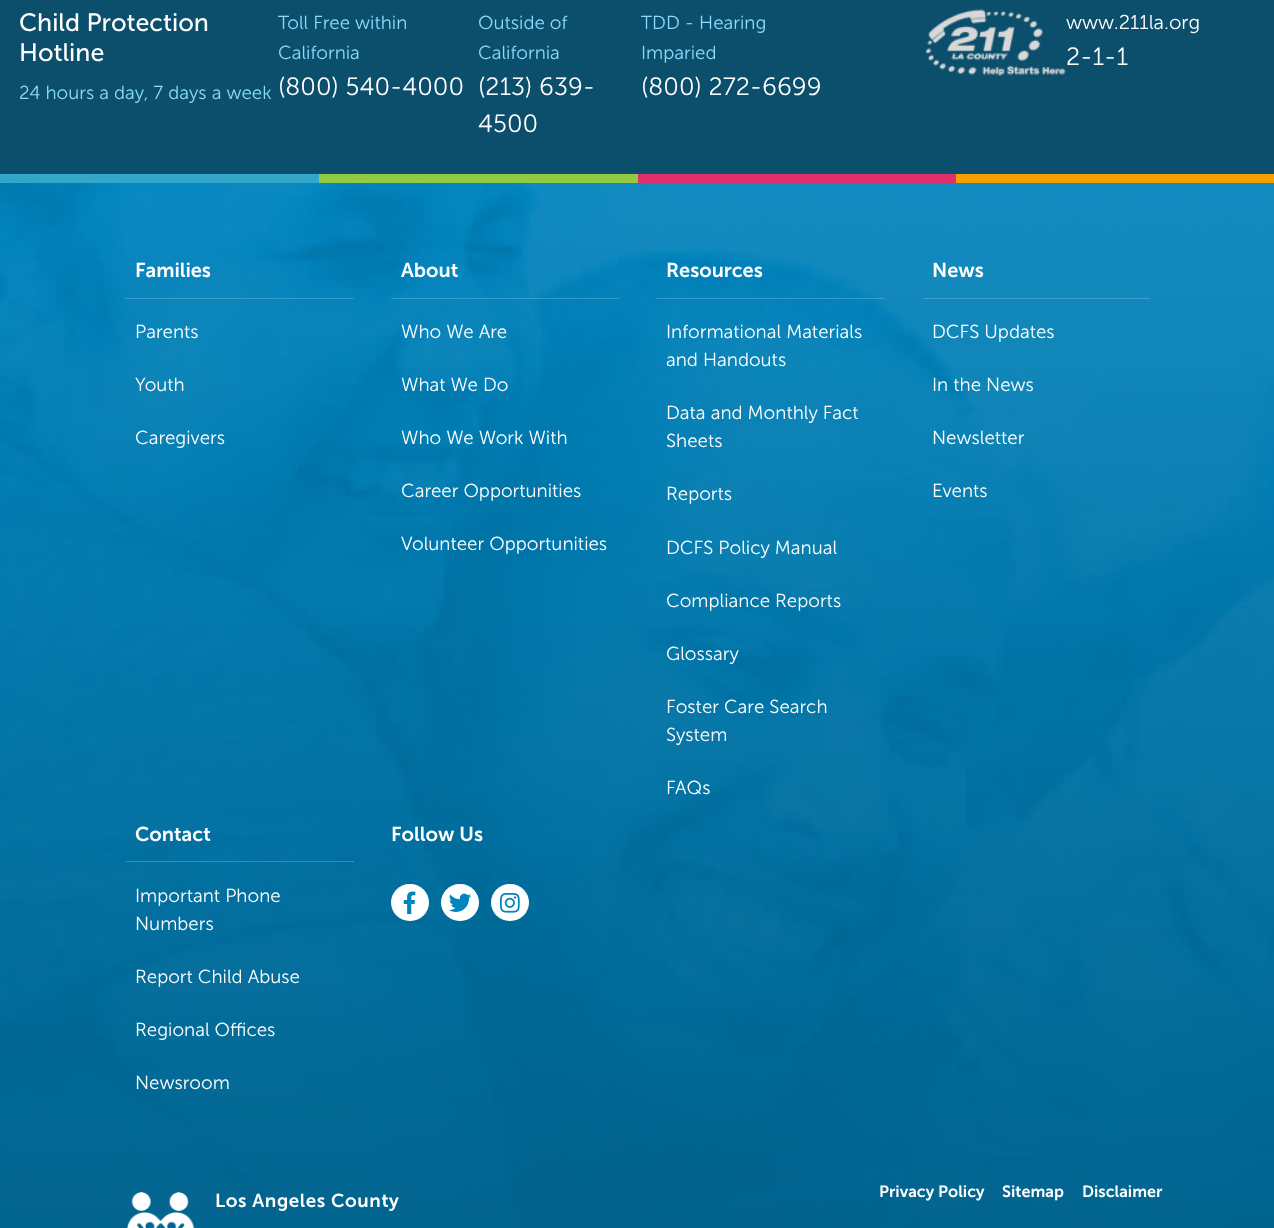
<?xml version="1.0" encoding="UTF-8"?>
<svg xmlns="http://www.w3.org/2000/svg" xmlns:xlink="http://www.w3.org/1999/xlink" width="1274" height="1228">
  <rect width="100%" height="100%" fill="#0b4f6c" />
  <image x="925" y="7" width="141" height="69" xlink:href="image1.png" />
  <image x="0" y="183" width="1274" height="1045" xlink:href="image2.png" />
  <rect y="174" width="319" height="9" fill="#32a7c7" />
  <rect x="319" y="174" width="319" height="9" fill="#93ca44" />
  <rect x="638" y="174" width="318" height="9" fill="#e12f6b" />
  <rect x="956" y="174" width="318" height="9" fill="#f89d02" />
  <rect x="125" y="298" width="229" height="1" fill="#ffffff" fill-opacity="0.2" />
  <rect x="391" y="298" width="228" height="1" fill="#ffffff" fill-opacity="0.2" />
  <rect x="656" y="298" width="229" height="1" fill="#ffffff" fill-opacity="0.2" />
  <rect x="923" y="298" width="227" height="1" fill="#419fc9" />
  <rect x="125" y="861" width="229" height="1" fill="#ffffff" fill-opacity="0.2" />
  <rect x="391" y="884" width="38" height="37" rx="18.5" fill="#ffffff" />
  <image x="403" y="891" width="13" height="24" xlink:href="image3.png" />
  <rect x="441" y="884" width="38" height="37" rx="18.5" fill="#ffffff" />
  <image x="448" y="893" width="23" height="19" xlink:href="image4.png" />
  <rect x="491" y="884" width="38" height="37" rx="18.5" fill="#ffffff" />
  <image x="500" y="893" width="20" height="20" xlink:href="image5.png" />
  <image x="126" y="1192" width="69" height="36" xlink:href="image6.png" />
  <text x="19" y="31" style="font-family: 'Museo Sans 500'; font-size: 25px; fill: #ffffff">Child Protection</text>
  <text x="19" y="61" style="font-family: 'Museo Sans 500'; font-size: 25px; fill: #ffffff">Hotline</text>
  <text x="19" y="99" style="font-family: 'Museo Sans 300'; font-size: 18.75px; font-weight: 300; fill: #8adafc">24 hours a day, 7 days a week</text>
  <text x="278" y="29" style="font-family: 'Museo Sans 300'; font-size: 18.75px; font-weight: 300; fill: #8adafc">Toll Free within</text>
  <text x="278" y="59" style="font-family: 'Museo Sans 300'; font-size: 18.75px; font-weight: 300; fill: #8adafc">California</text>
  <text x="278" y="95" style="font-family: 'Museo Sans 300'; font-size: 25px; font-weight: 300; fill: #ffffff">(800) 540-4000</text>
  <text x="478" y="29" style="font-family: 'Museo Sans 300'; font-size: 18.75px; font-weight: 300; fill: #8adafc">Outside of</text>
  <text x="478" y="59" style="font-family: 'Museo Sans 300'; font-size: 18.75px; font-weight: 300; fill: #8adafc">California</text>
  <text x="478" y="95" style="font-family: 'Museo Sans 300'; font-size: 25px; font-weight: 300; fill: #ffffff">(213) 639-</text>
  <text x="478" y="132" style="font-family: 'Museo Sans 300'; font-size: 25px; font-weight: 300; fill: #ffffff">4500</text>
  <text x="641" y="29" style="font-family: 'Museo Sans 300'; font-size: 18.75px; font-weight: 300; fill: #8adafc">TDD - Hearing</text>
  <text x="641" y="59" style="font-family: 'Museo Sans 300'; font-size: 18.75px; font-weight: 300; fill: #8adafc">Imparied</text>
  <text x="641" y="95" style="font-family: 'Museo Sans 300'; font-size: 25px; font-weight: 300; fill: #ffffff">(800) 272-6699</text>
  <text x="1066" y="29" style="font-family: 'Museo Sans 300'; font-size: 20px; font-weight: 300; fill: #ffffff">www.211la.org</text>
  <text x="1066" y="65" style="font-family: 'Museo Sans 300'; font-size: 25px; font-weight: 300; fill: #ffffff">2-1-1</text>
  <text x="135" y="277" style="font-family: 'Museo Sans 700'; font-size: 20px; font-weight: 600; fill: #ffffff">Families</text>
  <text x="135" y="338" style="font-family: 'Museo Sans 300'; font-size: 18.75px; font-weight: 300; fill: #ffffff">Parents</text>
  <text x="135" y="391" style="font-family: 'Museo Sans 300'; font-size: 18.75px; font-weight: 300; fill: #ffffff">Youth</text>
  <text x="135" y="444" style="font-family: 'Museo Sans 300'; font-size: 18.75px; font-weight: 300; fill: #ffffff">Caregivers</text>
  <text x="401" y="277" style="font-family: 'Museo Sans 700'; font-size: 20px; font-weight: 600; fill: #ffffff">About</text>
  <text x="401" y="338" style="font-family: 'Museo Sans 300'; font-size: 18.75px; font-weight: 300; fill: #ffffff">Who We Are</text>
  <text x="401" y="391" style="font-family: 'Museo Sans 300'; font-size: 18.75px; font-weight: 300; fill: #ffffff">What We Do</text>
  <text x="401" y="444" style="font-family: 'Museo Sans 300'; font-size: 18.75px; font-weight: 300; fill: #ffffff">Who We Work With</text>
  <text x="401" y="497" style="font-family: 'Museo Sans 300'; font-size: 18.75px; font-weight: 300; fill: #ffffff">Career Opportunities</text>
  <text x="401" y="550" style="font-family: 'Museo Sans 300'; font-size: 18.75px; font-weight: 300; fill: #ffffff">Volunteer Opportunities</text>
  <text x="666" y="277" style="font-family: 'Museo Sans 700'; font-size: 20px; font-weight: 600; fill: #ffffff">Resources</text>
  <text x="666" y="338" style="font-family: 'Museo Sans 300'; font-size: 18.75px; font-weight: 300; fill: #ffffff">Informational Materials</text>
  <text x="666" y="366" style="font-family: 'Museo Sans 300'; font-size: 18.75px; font-weight: 300; fill: #ffffff">and Handouts</text>
  <text x="666" y="419" style="font-family: 'Museo Sans 300'; font-size: 18.75px; font-weight: 300; fill: #ffffff">Data and Monthly Fact</text>
  <text x="666" y="447" style="font-family: 'Museo Sans 300'; font-size: 18.75px; font-weight: 300; fill: #ffffff">Sheets</text>
  <text x="666" y="500" style="font-family: 'Museo Sans 300'; font-size: 18.75px; font-weight: 300; fill: #ffffff">Reports</text>
  <text x="666" y="554" style="font-family: 'Museo Sans 300'; font-size: 18.75px; font-weight: 300; fill: #ffffff">DCFS Policy Manual</text>
  <text x="666" y="607" style="font-family: 'Museo Sans 300'; font-size: 18.75px; font-weight: 300; fill: #ffffff">Compliance Reports</text>
  <text x="666" y="660" style="font-family: 'Museo Sans 300'; font-size: 18.75px; font-weight: 300; fill: #ffffff">Glossary</text>
  <text x="666" y="713" style="font-family: 'Museo Sans 300'; font-size: 18.75px; font-weight: 300; fill: #ffffff">Foster Care Search</text>
  <text x="666" y="741" style="font-family: 'Museo Sans 300'; font-size: 18.75px; font-weight: 300; fill: #ffffff">System</text>
  <text x="666" y="794" style="font-family: 'Museo Sans 300'; font-size: 18.75px; font-weight: 300; fill: #ffffff">FAQs</text>
  <text x="932" y="277" style="font-family: 'Museo Sans 700'; font-size: 20px; font-weight: 600; fill: #ffffff">News</text>
  <text x="932" y="338" style="font-family: 'Museo Sans 300'; font-size: 18.75px; font-weight: 300; fill: #ffffff">DCFS Updates</text>
  <text x="932" y="391" style="font-family: 'Museo Sans 300'; font-size: 18.75px; font-weight: 300; fill: #ffffff">In the News</text>
  <text x="932" y="444" style="font-family: 'Museo Sans 300'; font-size: 18.75px; font-weight: 300; fill: #ffffff">Newsletter</text>
  <text x="932" y="497" style="font-family: 'Museo Sans 300'; font-size: 18.75px; font-weight: 300; fill: #ffffff">Events</text>
  <text x="135" y="841" style="font-family: 'Museo Sans 700'; font-size: 20px; font-weight: 600; fill: #ffffff">Contact</text>
  <text x="135" y="902" style="font-family: 'Museo Sans 300'; font-size: 18.75px; font-weight: 300; fill: #ffffff">Important Phone</text>
  <text x="135" y="930" style="font-family: 'Museo Sans 300'; font-size: 18.75px; font-weight: 300; fill: #ffffff">Numbers</text>
  <text x="135" y="983" style="font-family: 'Museo Sans 300'; font-size: 18.75px; font-weight: 300; fill: #ffffff">Report Child Abuse</text>
  <text x="135" y="1036" style="font-family: 'Museo Sans 300'; font-size: 18.75px; font-weight: 300; fill: #ffffff">Regional Offices</text>
  <text x="135" y="1089" style="font-family: 'Museo Sans 300'; font-size: 18.75px; font-weight: 300; fill: #ffffff">Newsroom</text>
  <text x="391" y="841" style="font-family: 'Museo Sans 700'; font-size: 20px; font-weight: 600; fill: #ffffff">Follow Us</text>
  <text x="215" y="1207" style="font-family: 'Museo Sans 700'; font-size: 18.75px; font-weight: 600; letter-spacing: 0.6px; fill: #ffffff">Los Angeles County</text>
  <text x="879" y="1197" style="font-family: 'Museo Sans 700'; font-size: 16.25px; font-weight: 600; fill: #ffffff">Privacy Policy</text>
  <text x="1002" y="1197" style="font-family: 'Museo Sans 700'; font-size: 16.25px; font-weight: 600; fill: #ffffff">Sitemap</text>
  <text x="1082" y="1197" style="font-family: 'Museo Sans 700'; font-size: 16.25px; font-weight: 600; fill: #ffffff">Disclaimer</text>
</svg>
